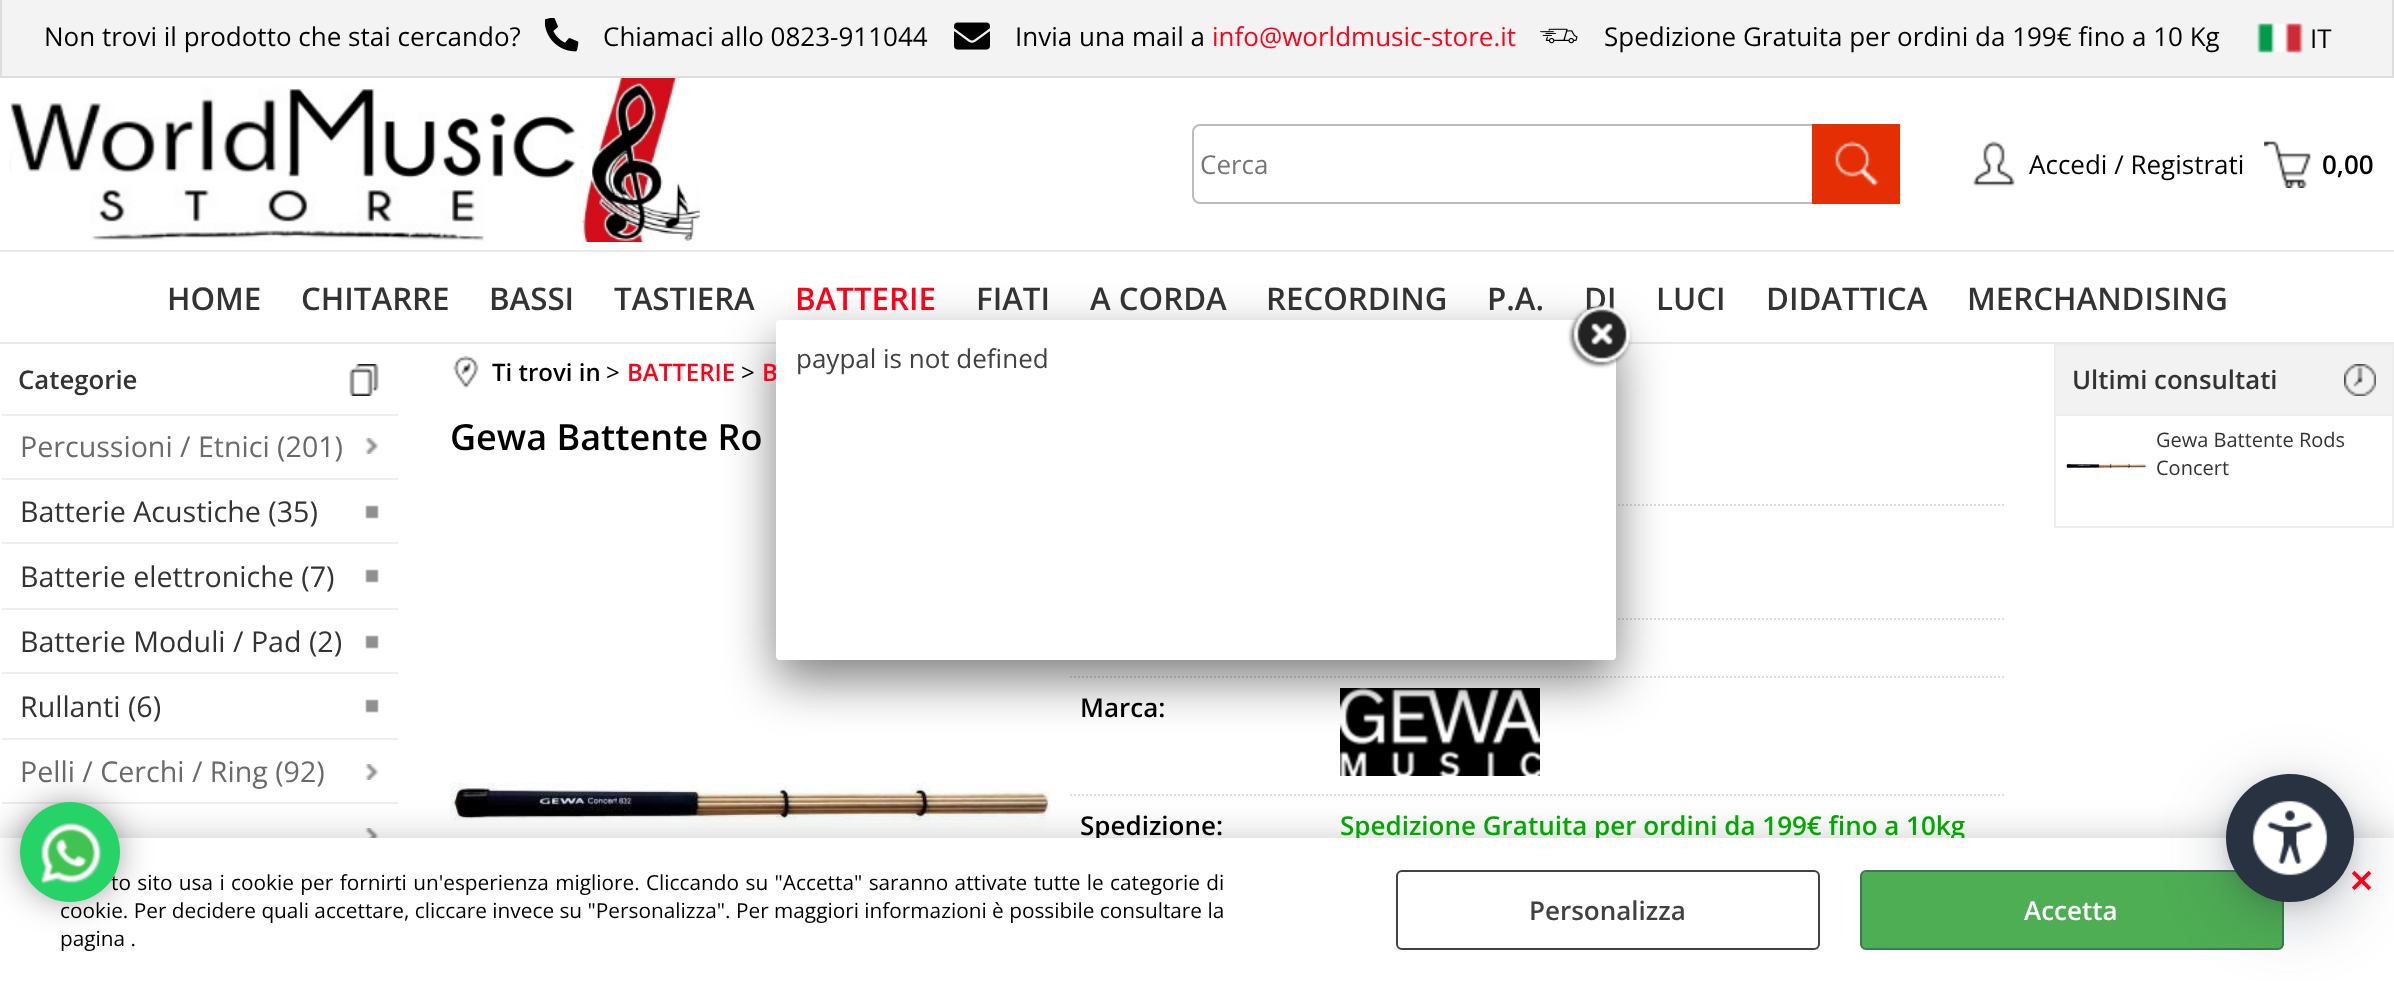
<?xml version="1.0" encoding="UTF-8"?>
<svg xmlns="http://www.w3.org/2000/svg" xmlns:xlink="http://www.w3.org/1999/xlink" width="2394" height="981">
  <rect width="100%" height="100%" fill="#ffffff" />
  <rect x="2" width="2390" height="76" fill="#f3f3f3" />
  <rect x="2392" width="2" height="78" fill="#dddddd" />
  <rect y="76" width="2394" height="2" fill="#dddddd" />
  <rect width="2" height="78" fill="#dddddd" />
  <image x="544" y="18" width="35" height="34" xlink:href="image1.png" />
  <image x="954" y="22" width="36" height="28" xlink:href="image2.png" />
  <image x="1540" y="28" width="38" height="16" xlink:href="image3.png" />
  <image x="2257" y="23" width="46" height="30" xlink:href="image4.png" />
  <image x="9" y="78" width="691" height="164" xlink:href="image5.png" />
  <rect x="1193" y="125" width="706" height="78" rx="7" fill="none" stroke="#bbbbbb" stroke-width="2" />
  <rect x="1812" y="124" width="88" height="80" fill="#e62e04" />
  <image x="1835" y="141" width="44" height="46" xlink:href="image6.png" />
  <image x="1973" y="141" width="42" height="46" xlink:href="image7.png" />
  <image x="2264" y="141" width="47" height="47" xlink:href="image8.png" />
  <rect y="250" width="2394" height="2" fill="#e9e9e9" />
  <rect y="342" width="2394" height="2" fill="#e9e9e9" />
  <path d="M 1330 505 h 674" fill="none" stroke="#dddddd" stroke-width="2" stroke-dasharray="2 2" />
  <path d="M 1330 619 h 674" fill="none" stroke="#dddddd" stroke-width="2" stroke-dasharray="2 2" />
  <path d="M 1070 677 h 260" fill="none" stroke="#dddddd" stroke-width="2" stroke-dasharray="2 2" />
  <path d="M 1330 677 h 674" fill="none" stroke="#dddddd" stroke-width="2" stroke-dasharray="2 2" />
  <image x="1340" y="688" width="200" height="88" xlink:href="image16.png" />
  <rect x="776" y="340" width="840" height="340" rx="4" fill="#000000" fill-opacity="0.5" filter="blur(25px)" />
  <image x="349" y="364" width="30" height="32" xlink:href="image10.png" />
  <rect x="2" y="414" width="396" height="2" fill="#eeeeee" />
  <image x="365" y="438" width="14" height="16" xlink:href="image11.png" />
  <rect x="2" y="478" width="396" height="2" fill="#eeeeee" />
  <image x="365" y="505" width="14" height="14" xlink:href="image12.png" />
  <rect x="2" y="542" width="396" height="2" fill="#eeeeee" />
  <image x="365" y="569" width="14" height="14" xlink:href="image12.png" />
  <rect x="2" y="608" width="396" height="2" fill="#eeeeee" />
  <image x="365" y="635" width="14" height="14" xlink:href="image12.png" />
  <rect x="2" y="672" width="396" height="2" fill="#eeeeee" />
  <image x="365" y="699" width="14" height="14" xlink:href="image12.png" />
  <rect x="2" y="738" width="396" height="2" fill="#eeeeee" />
  <image x="365" y="764" width="14" height="16" xlink:href="image11.png" />
  <rect x="2" y="802" width="396" height="2" fill="#eeeeee" />
  <image x="365" y="828" width="14" height="10" xlink:href="image13.png" />
  <image x="453" y="356" width="26" height="32" xlink:href="image14.png" />
  <image x="450" y="782" width="600" height="49" xlink:href="image15.png" />
  <path d="M 1070 795 h 260" fill="none" stroke="#dddddd" stroke-width="2" stroke-dasharray="2 2" />
  <path d="M 1330 795 h 674" fill="none" stroke="#dddddd" stroke-width="2" stroke-dasharray="2 2" />
  <rect x="2055" y="345" width="338" height="182" fill="none" stroke="#eeeeee" stroke-width="2" />
  <rect x="2056" y="346" width="336" height="68" fill="#f2f2f2" />
  <image x="2344" y="364" width="32" height="32" xlink:href="image17.png" />
  <rect x="2056" y="414" width="336" height="2" fill="#eeeeee" />
  <image x="2066" y="460" width="80" height="9" xlink:href="image18.png" />
  <rect y="838" width="2394" height="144" fill="#000000" fill-opacity="0.2" filter="blur(18px)" />
  <text x="44" y="46" style="font-family: Open Sans; font-size: 26px; fill: #000000">Non trovi il prodotto che stai cercando?</text>
  <text x="603" y="46" style="font-family: Open Sans; font-size: 26px; fill: #000000">Chiamaci allo 0823-911044</text>
  <text x="1015" y="46" style="font-family: Open Sans; font-size: 26px; fill: #000000">Invia una mail a</text>
  <text x="1212" y="46" style="font-family: Open Sans; font-size: 26px; fill: #fb0219">info@worldmusic-store.it</text>
  <text x="1604" y="46" style="font-family: Open Sans; font-size: 26px; fill: #000000">Spedizione Gratuita per ordini da 199€ fino a 10 Kg</text>
  <text x="2310" y="48" style="font-family: Open Sans; font-size: 26px; fill: #000000">IT</text>
  <text x="1200" y="174" style="font-family: Open Sans; font-size: 26px; fill: #757575">Cerca</text>
  <text x="2029" y="174" style="font-family: Open Sans; font-size: 26px; fill: #000000">Accedi / Registrati</text>
  <text x="2322" y="174" style="font-family: Open Sans; font-size: 26px; font-weight: 600; fill: #000000">0,00</text>
  <text x="167" y="310" style="font-family: Open Sans; font-size: 31.25px; font-weight: 600; fill: #333333">HOME</text>
  <text x="301" y="310" style="font-family: Open Sans; font-size: 31.25px; font-weight: 600; fill: #333333">CHITARRE</text>
  <text x="489" y="310" style="font-family: Open Sans; font-size: 31.25px; font-weight: 600; fill: #333333">BASSI</text>
  <text x="614" y="310" style="font-family: Open Sans; font-size: 31.25px; font-weight: 600; fill: #333333">TASTIERA</text>
  <text x="795" y="310" style="font-family: Open Sans; font-size: 31.25px; font-weight: 600; fill: #fb0219">BATTERIE</text>
  <text x="976" y="310" style="font-family: Open Sans; font-size: 31.25px; font-weight: 600; fill: #333333">FIATI</text>
  <text x="1090" y="310" style="font-family: Open Sans; font-size: 31.25px; font-weight: 600; fill: #333333">A CORDA</text>
  <text x="1266" y="310" style="font-family: Open Sans; font-size: 31.25px; font-weight: 600; fill: #333333">RECORDING</text>
  <text x="1487" y="310" style="font-family: Open Sans; font-size: 31.25px; font-weight: 600; fill: #333333">P.A.</text>
  <text x="1584" y="310" style="font-family: Open Sans; font-size: 31.25px; font-weight: 600; fill: #333333">DJ</text>
  <text x="1656" y="310" style="font-family: Open Sans; font-size: 31.25px; font-weight: 600; fill: #333333">LUCI</text>
  <text x="1766" y="310" style="font-family: Open Sans; font-size: 31.25px; font-weight: 600; fill: #333333">DIDATTICA</text>
  <text x="1967" y="310" style="font-family: Open Sans; font-size: 31.25px; font-weight: 600; fill: #333333">MERCHANDISING</text>
  <text x="18" y="389" style="font-family: Open Sans; font-size: 25.75px; font-weight: 600; fill: #333333">Categorie</text>
  <text x="20" y="457" style="font-family: Open Sans; font-size: 28.6px; fill: #6b6969">Percussioni / Etnici (201)</text>
  <text x="20" y="522" style="font-family: Open Sans; font-size: 28.6px; fill: #333333">Batterie Acustiche (35)</text>
  <text x="20" y="587" style="font-family: Open Sans; font-size: 28.6px; fill: #333333">Batterie elettroniche (7)</text>
  <text x="20" y="652" style="font-family: Open Sans; font-size: 28.6px; fill: #333333">Batterie Moduli / Pad (2)</text>
  <text x="20" y="717" style="font-family: Open Sans; font-size: 28.6px; fill: #333333">Rullanti (6)</text>
  <text x="20" y="782" style="font-family: Open Sans; font-size: 28.6px; fill: #6b6969">Pelli / Cerchi / Ring (92)</text>
  <text x="492" y="381" style="font-family: Open Sans; font-size: 24px; font-weight: 600; fill: #000000">Ti trovi in</text>
  <text x="606" y="381" style="font-family: Open Sans; font-size: 24px; fill: #000000">&gt;</text>
  <text x="627" y="381" style="font-family: Open Sans; font-size: 24px; font-weight: 600; fill: #fb0219">BATTERIE</text>
  <text x="741" y="381" style="font-family: Open Sans; font-size: 24px; fill: #000000">&gt;</text>
  <text x="762" y="381" style="font-family: Open Sans; font-size: 24px; font-weight: 600; fill: #fb0219">B</text>
  <rect x="776" y="320" width="840" height="340" rx="4" fill="#ffffff" />
  <image x="1567" y="304" width="66" height="65" xlink:href="image9.png" />
  <text x="796" y="368" style="font-family: Open Sans; font-size: 26px; fill: #424141">paypal is not defined</text>
  <text x="450" y="450" style="font-family: Open Sans; font-size: 36px; font-weight: 600; fill: #000000">Gewa Battente Ro</text>
  <text x="1080" y="717" style="font-family: Open Sans; font-size: 26px; font-weight: 600; fill: #000000">Marca:</text>
  <text x="1080" y="835" style="font-family: Open Sans; font-size: 26px; font-weight: 600; fill: #000000">Spedizione:</text>
  <text x="1340" y="835" style="font-family: Open Sans; font-size: 26px; font-weight: 600; fill: #00a800">Spedizione Gratuita per ordini da 199€ fino a 10kg</text>
  <text x="2072" y="389" style="font-family: Open Sans; font-size: 25.75px; font-weight: 600; fill: #333333">Ultimi consultati</text>
  <text x="2156" y="447" style="font-family: Open Sans; font-size: 20px; fill: #333333">Gewa Battente Rods</text>
  <text x="2156" y="475" style="font-family: Open Sans; font-size: 20px; fill: #333333">Concert</text>
  <rect y="838" width="2394" height="143" fill="#ffffff" />
  <rect x="30" y="812" width="80" height="80" rx="40" fill="#000000" fill-opacity="0.7" filter="blur(20px)" />
  <text x="111" y="890" word-spacing="1" style="font-family: Open Sans; font-size: 20.8px; fill: #000000">to sito usa i cookie per fornirti un'esperienza migliore. Cliccando su "Accetta" saranno attivate tutte le categorie di</text>
  <circle cx="70" cy="852" r="50" fill="#25d366" />
  <image x="41" y="823" width="61" height="62" xlink:href="image19.png" />
  <text x="60" y="918" style="font-family: Open Sans; font-size: 20.8px; fill: #000000">cookie. Per decidere quali accettare, cliccare invece su "Personalizza". Per maggiori informazioni è possibile consultare la</text>
  <text x="60" y="946" style="font-family: Open Sans; font-size: 20.8px; fill: #000000">pagina .</text>
  <rect x="1397" y="871" width="422" height="78" rx="5" fill="none" stroke="#424141" stroke-width="2" />
  <text x="1529" y="920" style="font-family: Open Sans; font-size: 26px; font-weight: 600; fill: #424141">Personalizza</text>
  <rect x="1861" y="871" width="422" height="78" rx="5" fill="#4eae54" stroke="#3f7755" stroke-width="2" />
  <rect x="2226" y="790" width="128" height="128" rx="64" fill="#2d3748" fill-opacity="0.3" filter="blur(32px)" />
  <rect x="2226" y="778" width="128" height="128" rx="64" fill="#000000" fill-opacity="0.1" filter="blur(8px)" />
  <text x="2024" y="920" style="font-family: Open Sans; font-size: 26px; font-weight: 600; fill: #ffffff">Accetta</text>
  <text x="2349" y="896" style="font-family: Open Sans; font-size: 44px; font-weight: 600; fill: #fb0219">×</text>
  <circle cx="2290" cy="838" r="64" fill="#293241" />
  <image x="2252" y="800" width="76" height="76" xlink:href="image20.png" />
</svg>
